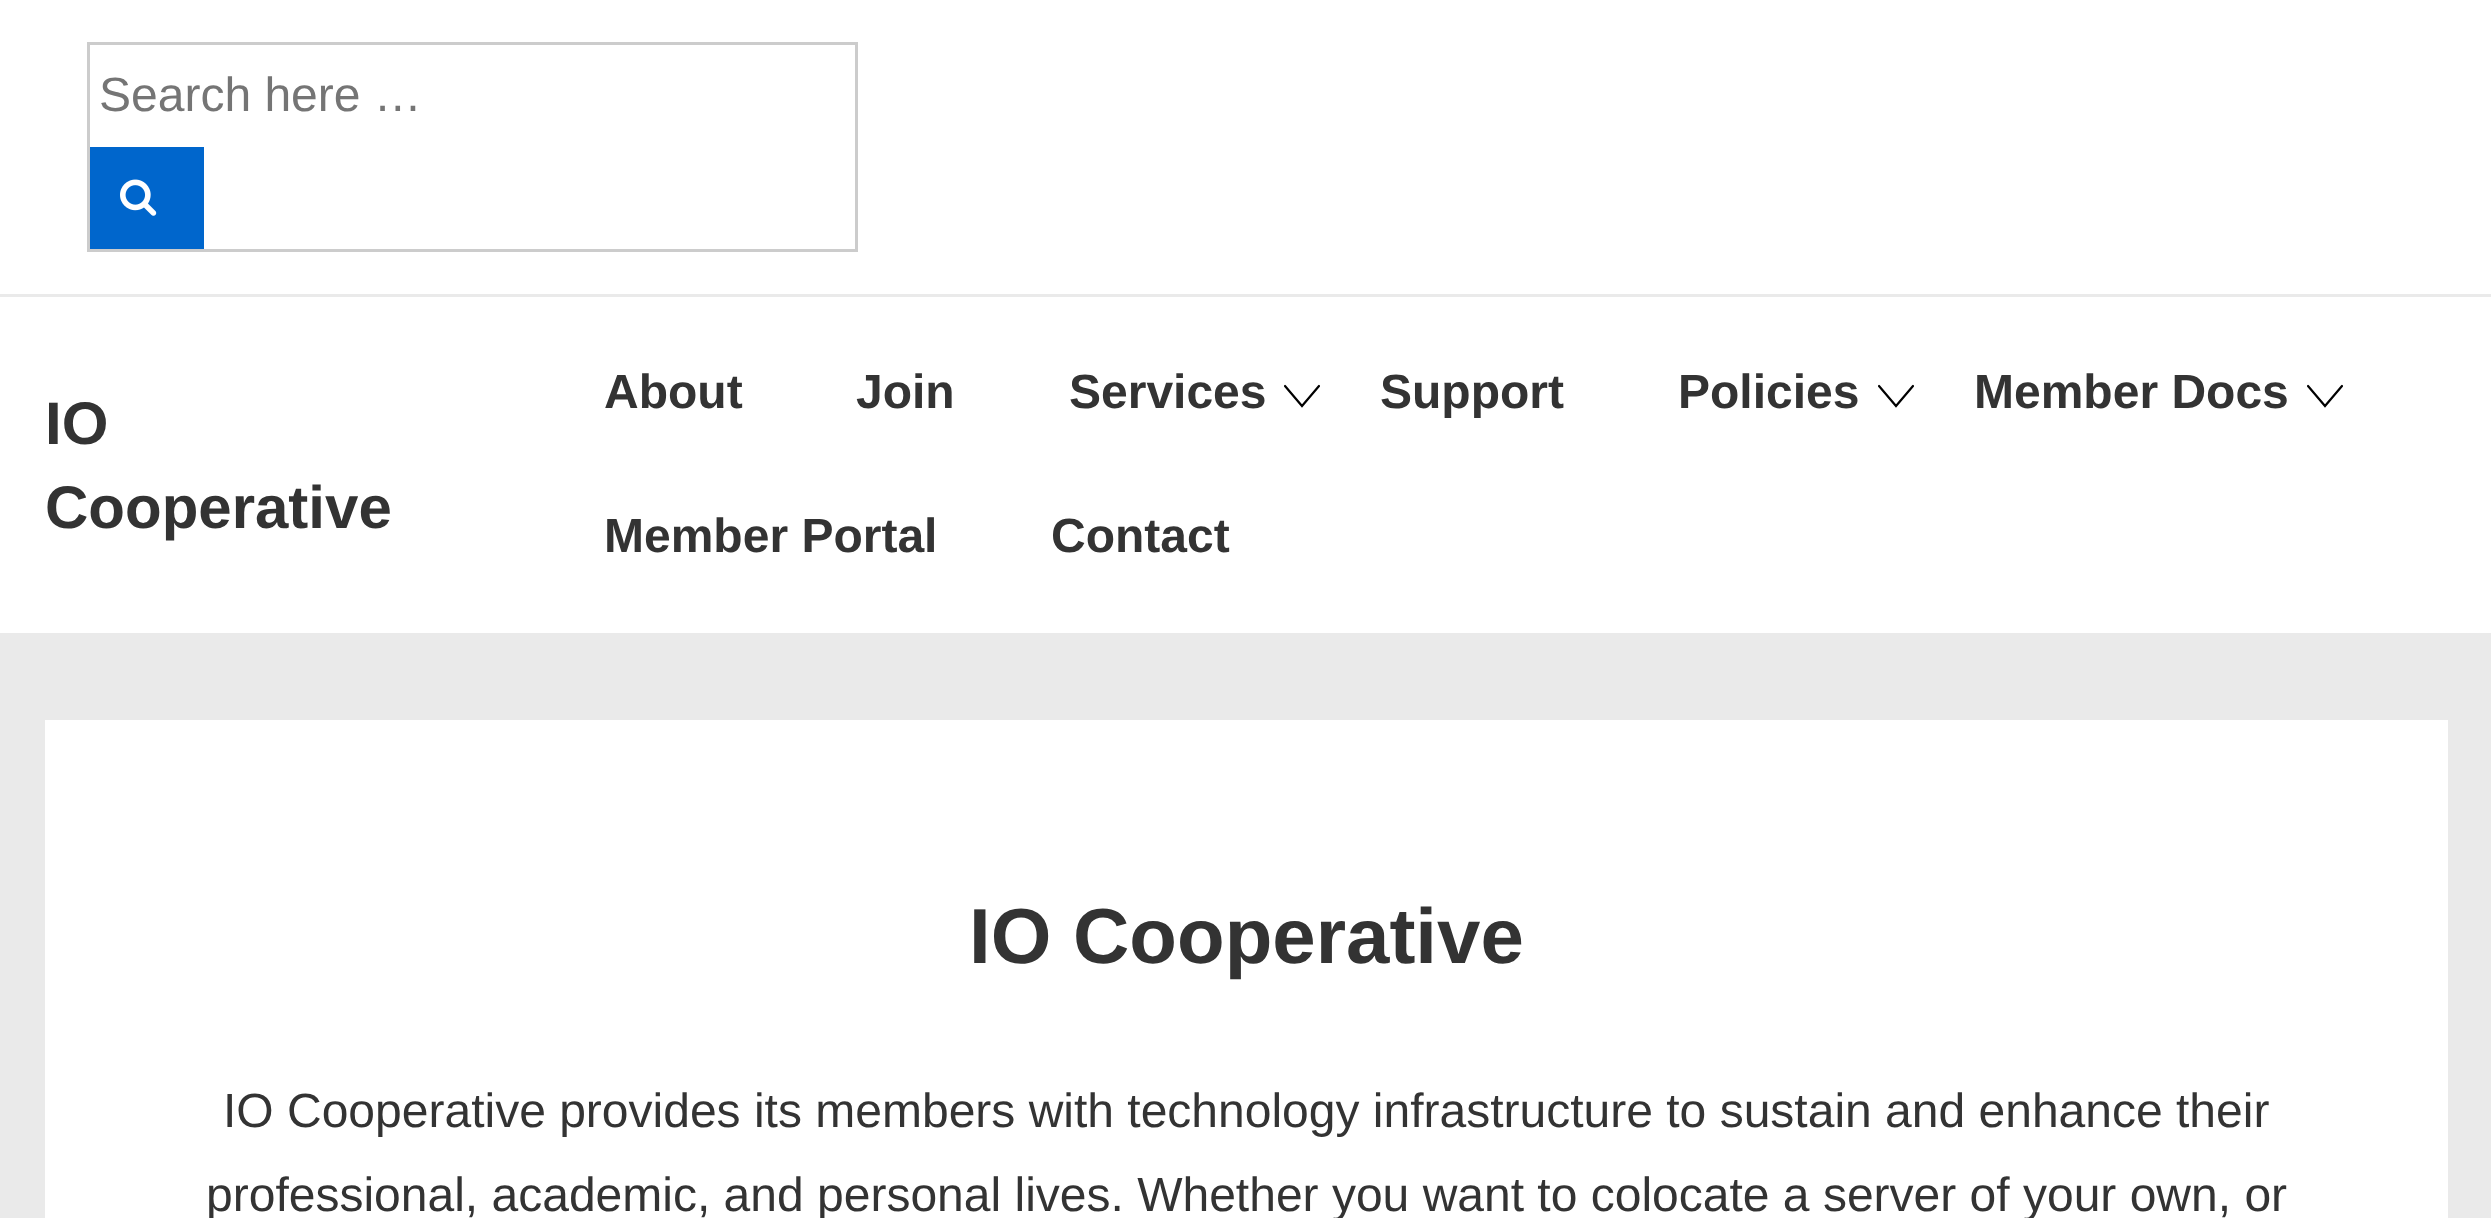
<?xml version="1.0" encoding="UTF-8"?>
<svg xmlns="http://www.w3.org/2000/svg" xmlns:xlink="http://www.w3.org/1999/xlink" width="2491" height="1218">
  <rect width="100%" height="100%" fill="#eaeaea" />
  <rect width="2491" height="294" fill="#ffffff" />
  <rect x="88.5" y="43.5" width="768" height="207" fill="none" stroke="#cccccc" stroke-width="3" />
  <rect x="90" y="147" width="114" height="102" fill="#0066cc" />
  <image x="120" y="179" width="37" height="37" xlink:href="image1.png" />
  <rect y="297" width="2491" height="336" fill="#ffffff" />
  <path d="M 1285 386 l 17 20 l 17 -20" fill="none" stroke="#000000" stroke-width="2.2" stroke-linecap="round" />
  <path d="M 1879 386 l 17 20 l 17 -20" fill="none" stroke="#000000" stroke-width="2.2" stroke-linecap="round" />
  <path d="M 2308 386 l 17 20 l 17 -20" fill="none" stroke="#000000" stroke-width="2.2" stroke-linecap="round" />
  <rect x="45" y="720" width="2403" height="498" fill="#ffffff" />
  <text x="99" y="111" style="font-family: Liberation Sans; font-size: 48px; fill: #757575">Search here …</text>
  <text x="45" y="444" style="font-family: Liberation Sans; font-size: 60px; font-weight: bold; fill: #333333">IO</text>
  <text x="45" y="528" style="font-family: Liberation Sans; font-size: 60px; font-weight: bold; fill: #333333">Cooperative</text>
  <text x="604" y="408" style="font-family: Liberation Sans; font-size: 48px; font-weight: bold; fill: #333333">About</text>
  <text x="856" y="408" style="font-family: Liberation Sans; font-size: 48px; font-weight: bold; fill: #333333">Join</text>
  <text x="1069" y="408" style="font-family: Liberation Sans; font-size: 48px; font-weight: bold; fill: #333333">Services</text>
  <text x="1380" y="408" style="font-family: Liberation Sans; font-size: 48px; font-weight: bold; fill: #333333">Support</text>
  <text x="1678" y="408" style="font-family: Liberation Sans; font-size: 48px; font-weight: bold; fill: #333333">Policies</text>
  <text x="1974" y="408" style="font-family: Liberation Sans; font-size: 48px; font-weight: bold; fill: #333333">Member Docs</text>
  <text x="604" y="552" style="font-family: Liberation Sans; font-size: 48px; font-weight: bold; fill: #333333">Member Portal</text>
  <text x="1051" y="552" style="font-family: Liberation Sans; font-size: 48px; font-weight: bold; fill: #333333">Contact</text>
  <text x="969" y="963" style="font-family: Liberation Sans; font-size: 78px; font-weight: bold; fill: #333333">IO Cooperative</text>
  <text x="223" y="1127" style="font-family: Liberation Sans; font-size: 48px; fill: #333333">IO Cooperative provides its members with technology infrastructure to sustain and enhance their</text>
  <text x="206" y="1211" style="font-family: Liberation Sans; font-size: 48px; fill: #333333">professional, academic, and personal lives. Whether you want to colocate a server of your own, or</text>
</svg>
